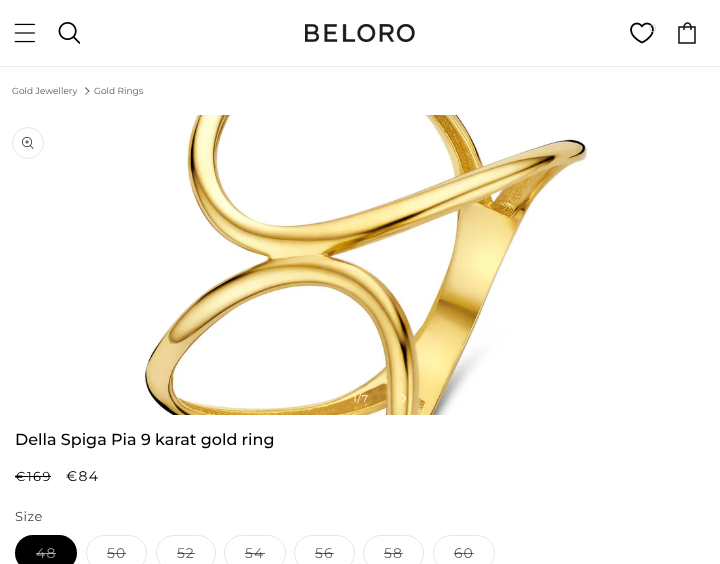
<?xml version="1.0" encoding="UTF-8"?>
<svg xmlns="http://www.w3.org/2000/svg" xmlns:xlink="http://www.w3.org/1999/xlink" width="720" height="564">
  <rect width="100%" height="100%" fill="#ffffff" />
  <rect y="66" width="720" height="1" fill="#ebebeb" />
  <image x="14" y="23" width="21" height="20" xlink:href="image1.png" />
  <image x="58" y="22" width="22" height="22" xlink:href="image2.png" />
  <image x="305" y="24" width="110" height="18" xlink:href="image3.png" />
  <image x="630" y="22" width="24" height="22" xlink:href="image4.png" />
  <image x="678" y="22" width="18" height="22" xlink:href="image5.png" />
  <path d="M 85.5 87 l 4 4 l -0.5 1 l -4 -4 z" fill="#595959" />
  <path d="M 89 90.5 l 0.5 0.5 l -4 4 l -0.5 -0.5 z" fill="#595959" />
  <image x="0" y="115" width="720" height="300" xlink:href="image6.png" />
  <circle cx="28" cy="143" r="15.5" fill="none" stroke="#e6e6e6" />
  <image x="22" y="137" width="12" height="12" xlink:href="image7.png" />
  <image x="317" y="402" width="2" height="1" xlink:href="image8.png" />
  <image x="401" y="393" width="6" height="10" xlink:href="image9.png" />
  <rect x="15" y="476" width="36" height="1" fill="#000000" />
  <rect x="15" y="535" width="62" height="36" rx="18" fill="#000000" />
  <rect x="15.5" y="535.5" width="61" height="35" rx="17.5" fill="none" stroke="#000000" stroke-opacity="0.1" />
  <rect x="86.5" y="535.5" width="60" height="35" rx="17.5" fill="none" stroke="#e6e6e6" />
  <rect x="156.5" y="535.5" width="59" height="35" rx="17.5" fill="none" stroke="#e6e6e6" />
  <rect x="224.5" y="535.5" width="61" height="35" rx="17.5" fill="none" stroke="#e6e6e6" />
  <rect x="294.5" y="535.5" width="60" height="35" rx="17.5" fill="none" stroke="#e6e6e6" />
  <rect x="363.5" y="535.5" width="60" height="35" rx="17.5" fill="none" stroke="#e6e6e6" />
  <rect x="433.5" y="535.5" width="61" height="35" rx="17.5" fill="none" stroke="#e6e6e6" />
  <text x="649" y="32" style="font-family: Montserrat; font-size: 11px; font-weight: 100; fill: #cecece">0</text>
  <text x="12" y="94" style="font-family: Montserrat; font-size: 9px; font-weight: 100; fill: #595959">Gold Jewellery</text>
  <text x="94" y="94" style="font-family: Montserrat; font-size: 9px; font-weight: 100; fill: #595959">Gold Rings</text>
  <text x="353" y="402" style="font-family: Montserrat; font-size: 10px; font-weight: 100; letter-spacing: 1px; fill: #ffffff">1/7</text>
  <text x="15" y="445" style="font-family: Montserrat; font-size: 16px; font-weight: 500; fill: #000000">Della Spiga Pia 9 karat gold ring</text>
  <text x="15" y="481" style="font-family: Montserrat; font-size: 13px; font-weight: 100; letter-spacing: 1.5px; fill: #000000">€169</text>
  <text x="66" y="481" style="font-family: Montserrat; font-size: 14px; font-weight: 100; letter-spacing: 1.5px; fill: #000000">€84</text>
  <text x="15" y="521" style="font-family: Montserrat; font-size: 13px; font-weight: 100; letter-spacing: 0.5px; fill: #404040">Size</text>
  <text x="36" y="558" style="font-family: Montserrat; font-size: 14px; font-weight: 100; letter-spacing: 1px; fill: #999999">48</text>
  <rect x="36" y="553" width="20" height="1" fill="#ffffff" fill-opacity="0.6" />
  <text x="107" y="558" style="font-family: Montserrat; font-size: 14px; font-weight: 100; letter-spacing: 1px; fill: #666666">50</text>
  <rect x="107" y="553" width="19" height="1" fill="#000000" fill-opacity="0.6" />
  <text x="177" y="558" style="font-family: Montserrat; font-size: 14px; font-weight: 100; letter-spacing: 1px; fill: #666666">52</text>
  <rect x="177" y="553" width="18" height="1" fill="#000000" fill-opacity="0.6" />
  <text x="245" y="558" style="font-family: Montserrat; font-size: 14px; font-weight: 100; letter-spacing: 1px; fill: #666666">54</text>
  <rect x="245" y="553" width="20" height="1" fill="#000000" fill-opacity="0.6" />
  <text x="315" y="558" style="font-family: Montserrat; font-size: 14px; font-weight: 100; letter-spacing: 1px; fill: #666666">56</text>
  <rect x="315" y="553" width="19" height="1" fill="#000000" fill-opacity="0.6" />
  <text x="384" y="558" style="font-family: Montserrat; font-size: 14px; font-weight: 100; letter-spacing: 1px; fill: #666666">58</text>
  <rect x="384" y="553" width="19" height="1" fill="#000000" fill-opacity="0.6" />
  <text x="454" y="558" style="font-family: Montserrat; font-size: 14px; font-weight: 100; letter-spacing: 1px; fill: #666666">60</text>
  <rect x="454" y="553" width="20" height="1" fill="#000000" fill-opacity="0.6" />
</svg>
